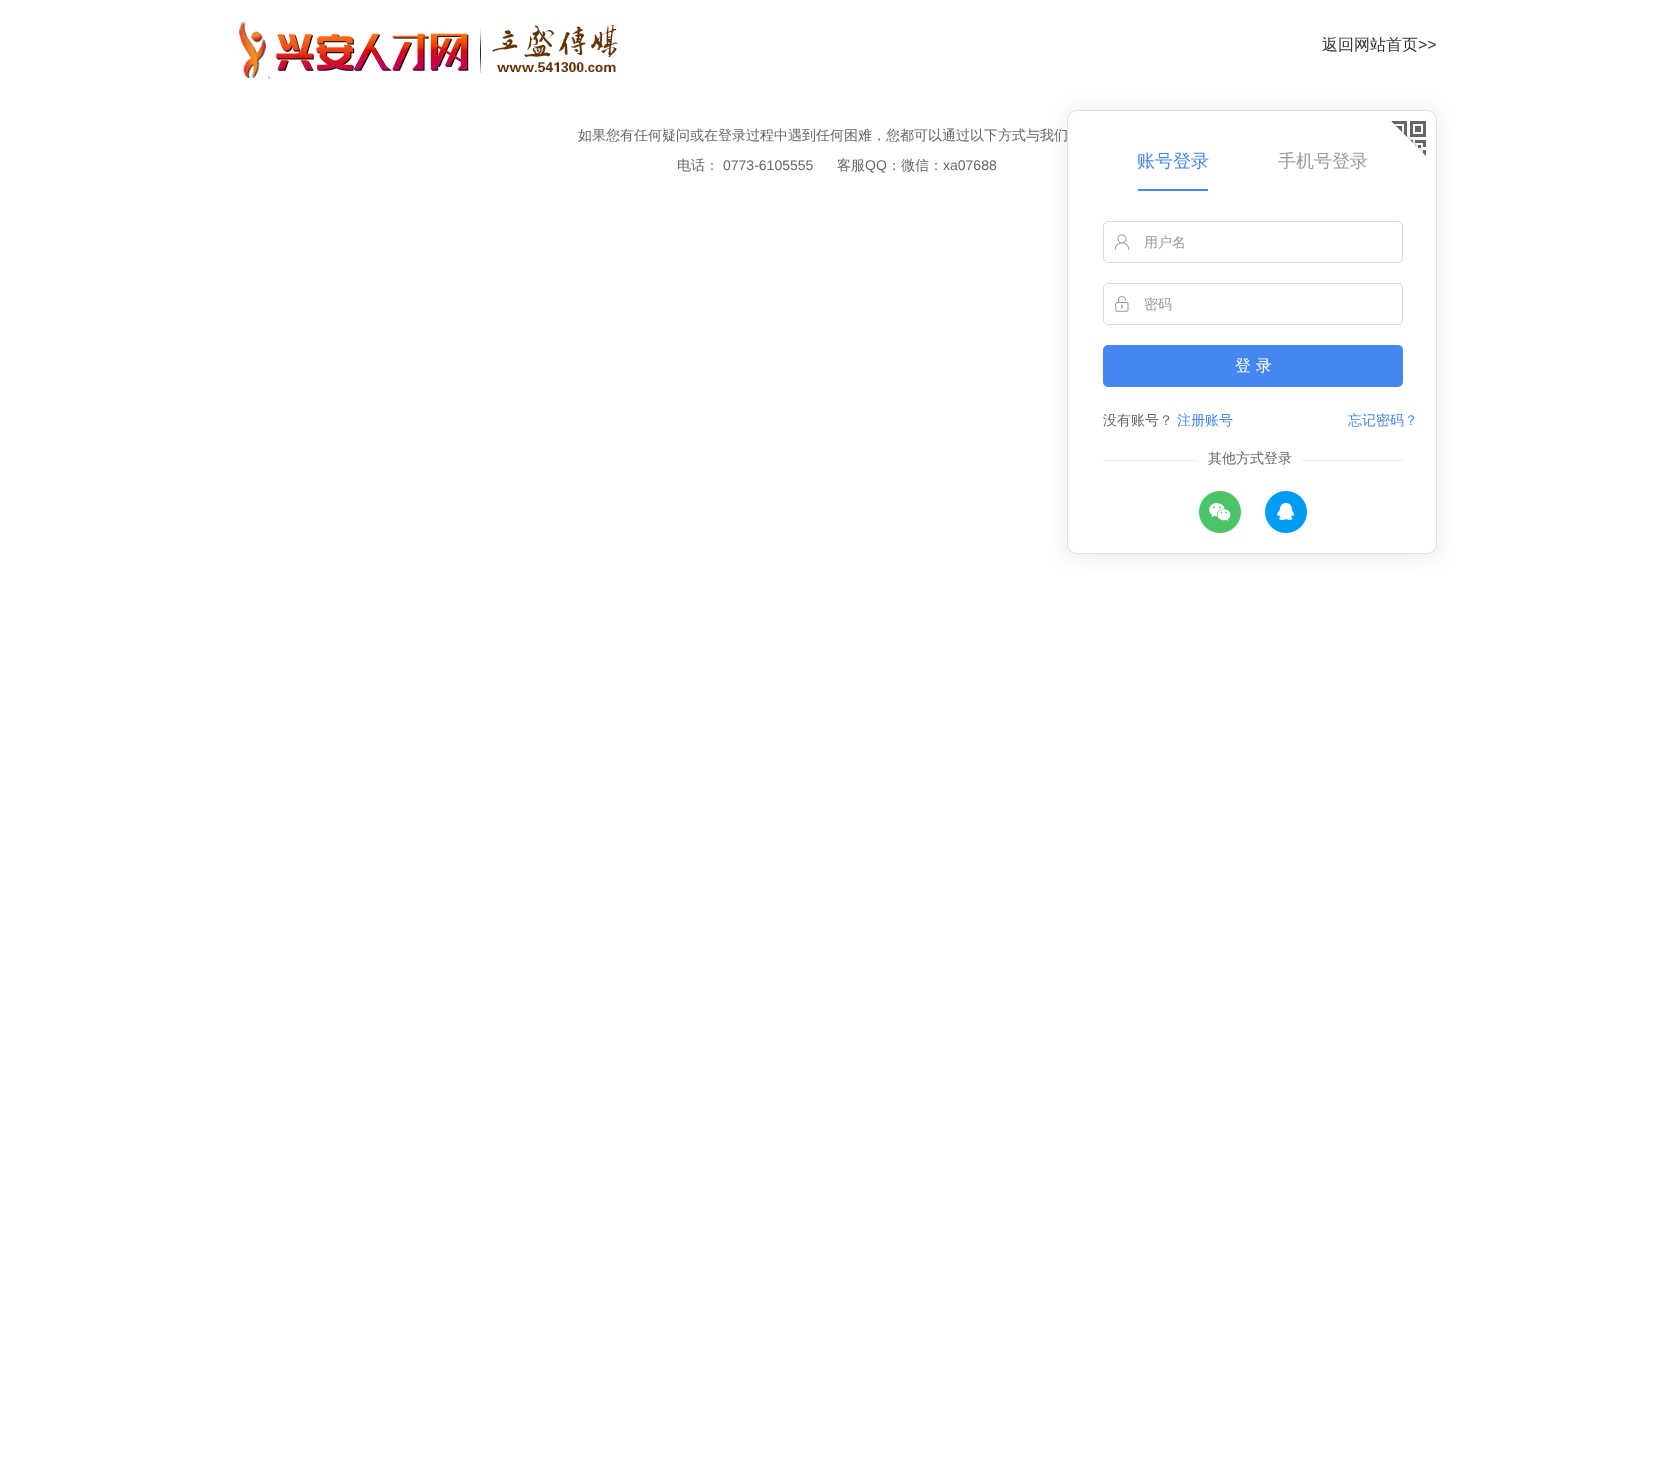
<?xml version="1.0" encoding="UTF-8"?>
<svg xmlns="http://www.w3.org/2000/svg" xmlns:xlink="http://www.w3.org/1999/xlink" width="1674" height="1461">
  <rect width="100%" height="100%" fill="#ffffff" />
  <image x="239" y="21" width="379" height="58" xlink:href="image1.png" />
  <rect x="1067" y="112" width="370" height="444" rx="10" fill="#0f0c46" fill-opacity="0.1" filter="blur(10px)" />
  <rect x="1067.5" y="110.5" width="369" height="443" rx="9.5" fill="#ffffff" stroke="#e1e1e1" />
  <image x="1391" y="121" width="35" height="35" xlink:href="image2.png" />
  <rect x="1138" y="189" width="70" height="2" fill="#4587f0" />
  <rect x="1103.5" y="221.5" width="299" height="41" rx="4.5" fill="none" stroke="#dadada" />
  <image x="1114" y="234" width="16" height="16" xlink:href="image3.png" />
  <rect x="1144" y="222" width="258" height="40" rx="5" fill="#ffffff" />
  <rect x="1103.5" y="283.5" width="299" height="41" rx="4.5" fill="none" stroke="#dadada" />
  <image x="1115" y="296" width="14" height="16" xlink:href="image4.png" />
  <rect x="1144" y="284" width="258" height="40" rx="5" fill="#ffffff" />
  <rect x="1103" y="345" width="300" height="42" rx="5" fill="#4587f0" />
  <rect x="1103" y="460" width="300" height="1" fill="#eeeeee" />
  <rect x="1198" y="460" width="104" height="1" fill="#ffffff" />
  <image x="1199" y="491" width="42" height="42" xlink:href="image5.png" />
  <image x="1265" y="491" width="42" height="42" xlink:href="image6.png" />
  <text x="1322" y="50" style="font-family: WenQuanYi Zen Hei; font-size: 16px; font-weight: 500; fill: #333333">返回网站首页</text>
  <text x="1418" y="50" style="font-family: Liberation Sans; font-size: 16px; fill: #333333">&gt;&gt;</text>
  <text x="578" y="140" style="font-family: WenQuanYi Zen Hei; font-size: 14px; font-weight: 500; fill: #666666">如果您有任何疑问或在登录过程中遇到任何困难，您都可以通过以下方式与我们</text>
  <text x="677" y="170" style="font-family: WenQuanYi Zen Hei; font-size: 14px; font-weight: 500; fill: #666666">电话：</text>
  <text x="723" y="170" style="font-family: Liberation Sans; font-size: 14px; fill: #666666">0773-6105555</text>
  <text x="837" y="170" style="font-family: WenQuanYi Zen Hei; font-size: 14px; font-weight: 500; fill: #666666">客服</text>
  <text x="865" y="170" style="font-family: Liberation Sans; font-size: 14px; fill: #666666">QQ</text>
  <text x="887" y="170" style="font-family: WenQuanYi Zen Hei; font-size: 14px; font-weight: 500; fill: #666666">：微信：</text>
  <text x="943" y="170" style="font-family: Liberation Sans; font-size: 14px; fill: #666666">xa07688</text>
  <text x="1137" y="167" style="font-family: WenQuanYi Zen Hei; font-size: 18px; font-weight: 500; fill: #4587f0">账号登录</text>
  <text x="1278" y="167" style="font-family: WenQuanYi Zen Hei; font-size: 18px; font-weight: 500; fill: #999999">手机号登录</text>
  <text x="1144" y="247" style="font-family: WenQuanYi Zen Hei; font-size: 14px; font-weight: 500; fill: #999999">用户名</text>
  <text x="1144" y="309" style="font-family: WenQuanYi Zen Hei; font-size: 14px; font-weight: 500; fill: #999999">密码</text>
  <text x="1235" y="371" style="font-family: WenQuanYi Zen Hei; font-size: 16px; font-weight: 500; fill: #ffffff">登 录</text>
  <text x="1103" y="425" style="font-family: WenQuanYi Zen Hei; font-size: 14px; font-weight: 500; fill: #666666">没有账号？</text>
  <text x="1177" y="425" style="font-family: WenQuanYi Zen Hei; font-size: 14px; font-weight: 500; fill: #4587f0">注册账号</text>
  <text x="1348" y="425" style="font-family: WenQuanYi Zen Hei; font-size: 14px; font-weight: 500; fill: #4587f0">忘记密码？</text>
  <text x="1208" y="463" style="font-family: WenQuanYi Zen Hei; font-size: 14px; font-weight: 500; fill: #666666">其他方式登录</text>
</svg>
